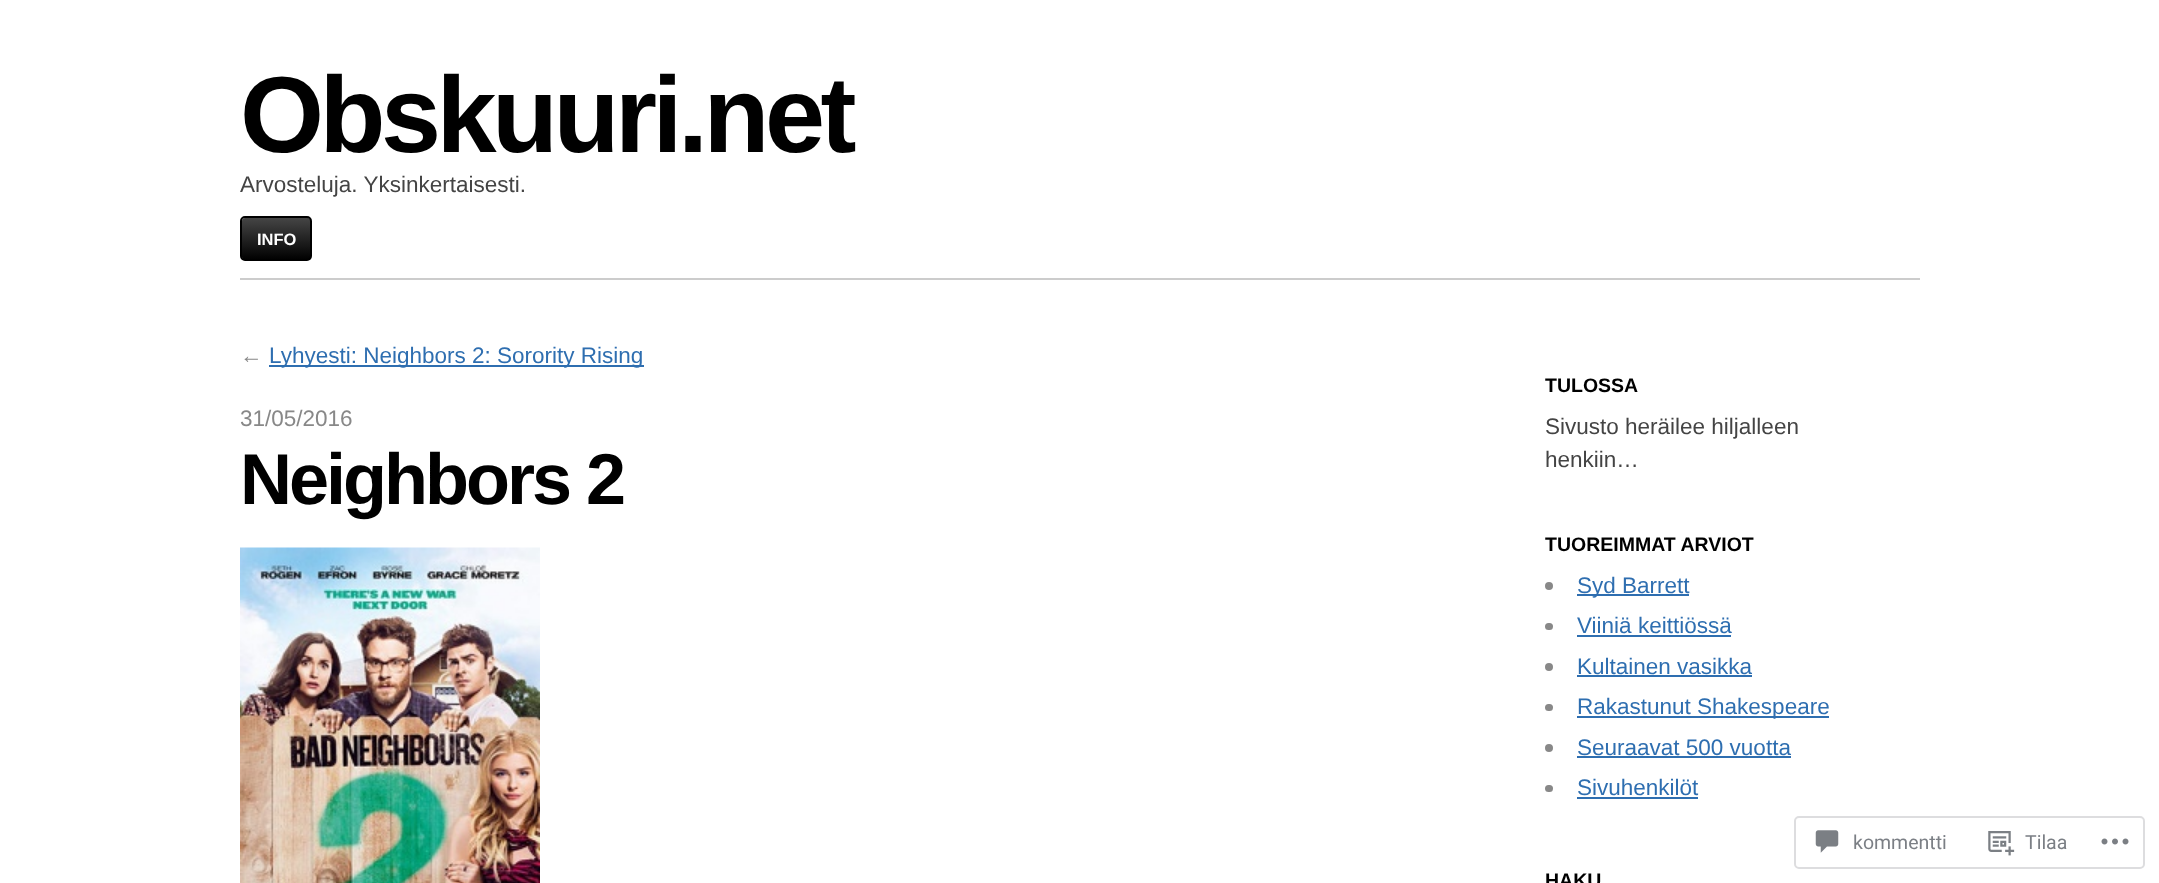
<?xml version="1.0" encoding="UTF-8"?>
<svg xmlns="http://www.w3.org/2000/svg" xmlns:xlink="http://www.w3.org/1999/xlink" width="2159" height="883">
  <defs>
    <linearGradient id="g1" gradientUnits="userSpaceOnUse" x1="242" y1="218" x2="242" y2="260"><stop offset="0" stop-color="#454545" /><stop offset="1" stop-color="#000000" /></linearGradient>
  </defs>
  <rect width="100%" height="100%" fill="#ffffff" />
  <rect x="240" y="278" width="1680" height="2" fill="#cccccc" />
  <rect x="242" y="218" width="69" height="42" rx="3" fill="url(#g1)" />
  <rect x="241" y="217" width="70" height="43" rx="4" fill="none" stroke="#000000" stroke-width="2" />
  <rect x="269" y="365" width="375" height="2" fill="#2e6eb0" />
  <image x="240" y="547" width="300" height="336" xlink:href="image1.png" />
  <circle cx="1549" cy="586" r="4" fill="#888888" />
  <rect x="1577" y="594" width="112" height="2" fill="#2e6eb0" />
  <rect x="1545" y="623" width="8" height="7" rx="3.5" fill="#888888" />
  <rect x="1577" y="635" width="154" height="2" fill="#2e6eb0" />
  <circle cx="1549" cy="667" r="4" fill="#888888" />
  <rect x="1577" y="675" width="175" height="2" fill="#2e6eb0" />
  <rect x="1545" y="704" width="8" height="7" rx="3.5" fill="#888888" />
  <rect x="1577" y="716" width="252" height="2" fill="#2e6eb0" />
  <circle cx="1549" cy="748" r="4" fill="#888888" />
  <rect x="1577" y="756" width="214" height="2" fill="#2e6eb0" />
  <rect x="1545" y="785" width="8" height="7" rx="3.5" fill="#888888" />
  <rect x="1577" y="797" width="121" height="2" fill="#2e6eb0" />
  <rect x="1795" y="817" width="349" height="51" rx="4" fill="none" stroke="#dddddf" stroke-width="2" />
  <image x="1815" y="830" width="24" height="23" xlink:href="image2.png" />
  <image x="1988" y="831" width="27" height="25" xlink:href="image3.png" />
  <image x="2101" y="838" width="28" height="7" xlink:href="image4.png" />
  <text x="240" y="152" style="font-family: Liberation Sans; font-size: 108px; font-weight: bold; letter-spacing: -4.5px; fill: #000000">Obskuuri.net</text>
  <text x="240" y="192" style="font-family: Liberation Sans; font-size: 22.5px; fill: #444444">Arvosteluja. Yksinkertaisesti.</text>
  <text x="257" y="245" style="font-family: Liberation Sans; font-size: 16.5px; font-weight: bold; fill: #ffffff">INFO</text>
  <text x="240" y="363" style="font-family: Liberation Sans; font-size: 22.5px; fill: #888888">←</text>
  <text x="269" y="363" style="font-family: Liberation Sans; font-size: 22.5px; fill: #2e6eb0">Lyhyesti: Neighbors 2: Sorority Rising</text>
  <text x="240" y="426" style="font-family: Liberation Sans; font-size: 22.5px; fill: #888888">31/05/2016</text>
  <text x="240" y="504" style="font-family: Liberation Sans; font-size: 72px; font-weight: bold; letter-spacing: -3px; fill: #000000">Neighbors 2</text>
  <text x="1545" y="392" style="font-family: Liberation Sans; font-size: 19.5px; font-weight: bold; fill: #000000">TULOSSA</text>
  <text x="1545" y="434" style="font-family: Liberation Sans; font-size: 22.5px; fill: #444444">Sivusto heräilee hiljalleen</text>
  <text x="1545" y="467" style="font-family: Liberation Sans; font-size: 22.5px; fill: #444444">henkiin…</text>
  <text x="1545" y="551" style="font-family: Liberation Sans; font-size: 19.5px; font-weight: bold; fill: #000000">TUOREIMMAT ARVIOT</text>
  <text x="1577" y="593" style="font-family: Liberation Sans; font-size: 22.5px; fill: #2e6eb0">Syd Barrett</text>
  <text x="1577" y="633" style="font-family: Liberation Sans; font-size: 22.5px; fill: #2e6eb0">Viiniä keittiössä</text>
  <text x="1577" y="674" style="font-family: Liberation Sans; font-size: 22.5px; fill: #2e6eb0">Kultainen vasikka</text>
  <text x="1577" y="714" style="font-family: Liberation Sans; font-size: 22.5px; fill: #2e6eb0">Rakastunut Shakespeare</text>
  <text x="1577" y="755" style="font-family: Liberation Sans; font-size: 22.5px; fill: #2e6eb0">Seuraavat 500 vuotta</text>
  <text x="1577" y="795" style="font-family: Liberation Sans; font-size: 22.5px; fill: #2e6eb0">Sivuhenkilöt</text>
  <text x="1545" y="887" style="font-family: Liberation Sans; font-size: 19.5px; font-weight: bold; fill: #000000">HAKU</text>
  <text x="1853" y="849" style="font-family: Roboto; font-size: 19.5px; fill: #7b7f85">kommentti</text>
  <text x="2025" y="849" style="font-family: Roboto; font-size: 19.5px; fill: #7b7f85">Tilaa</text>
</svg>
